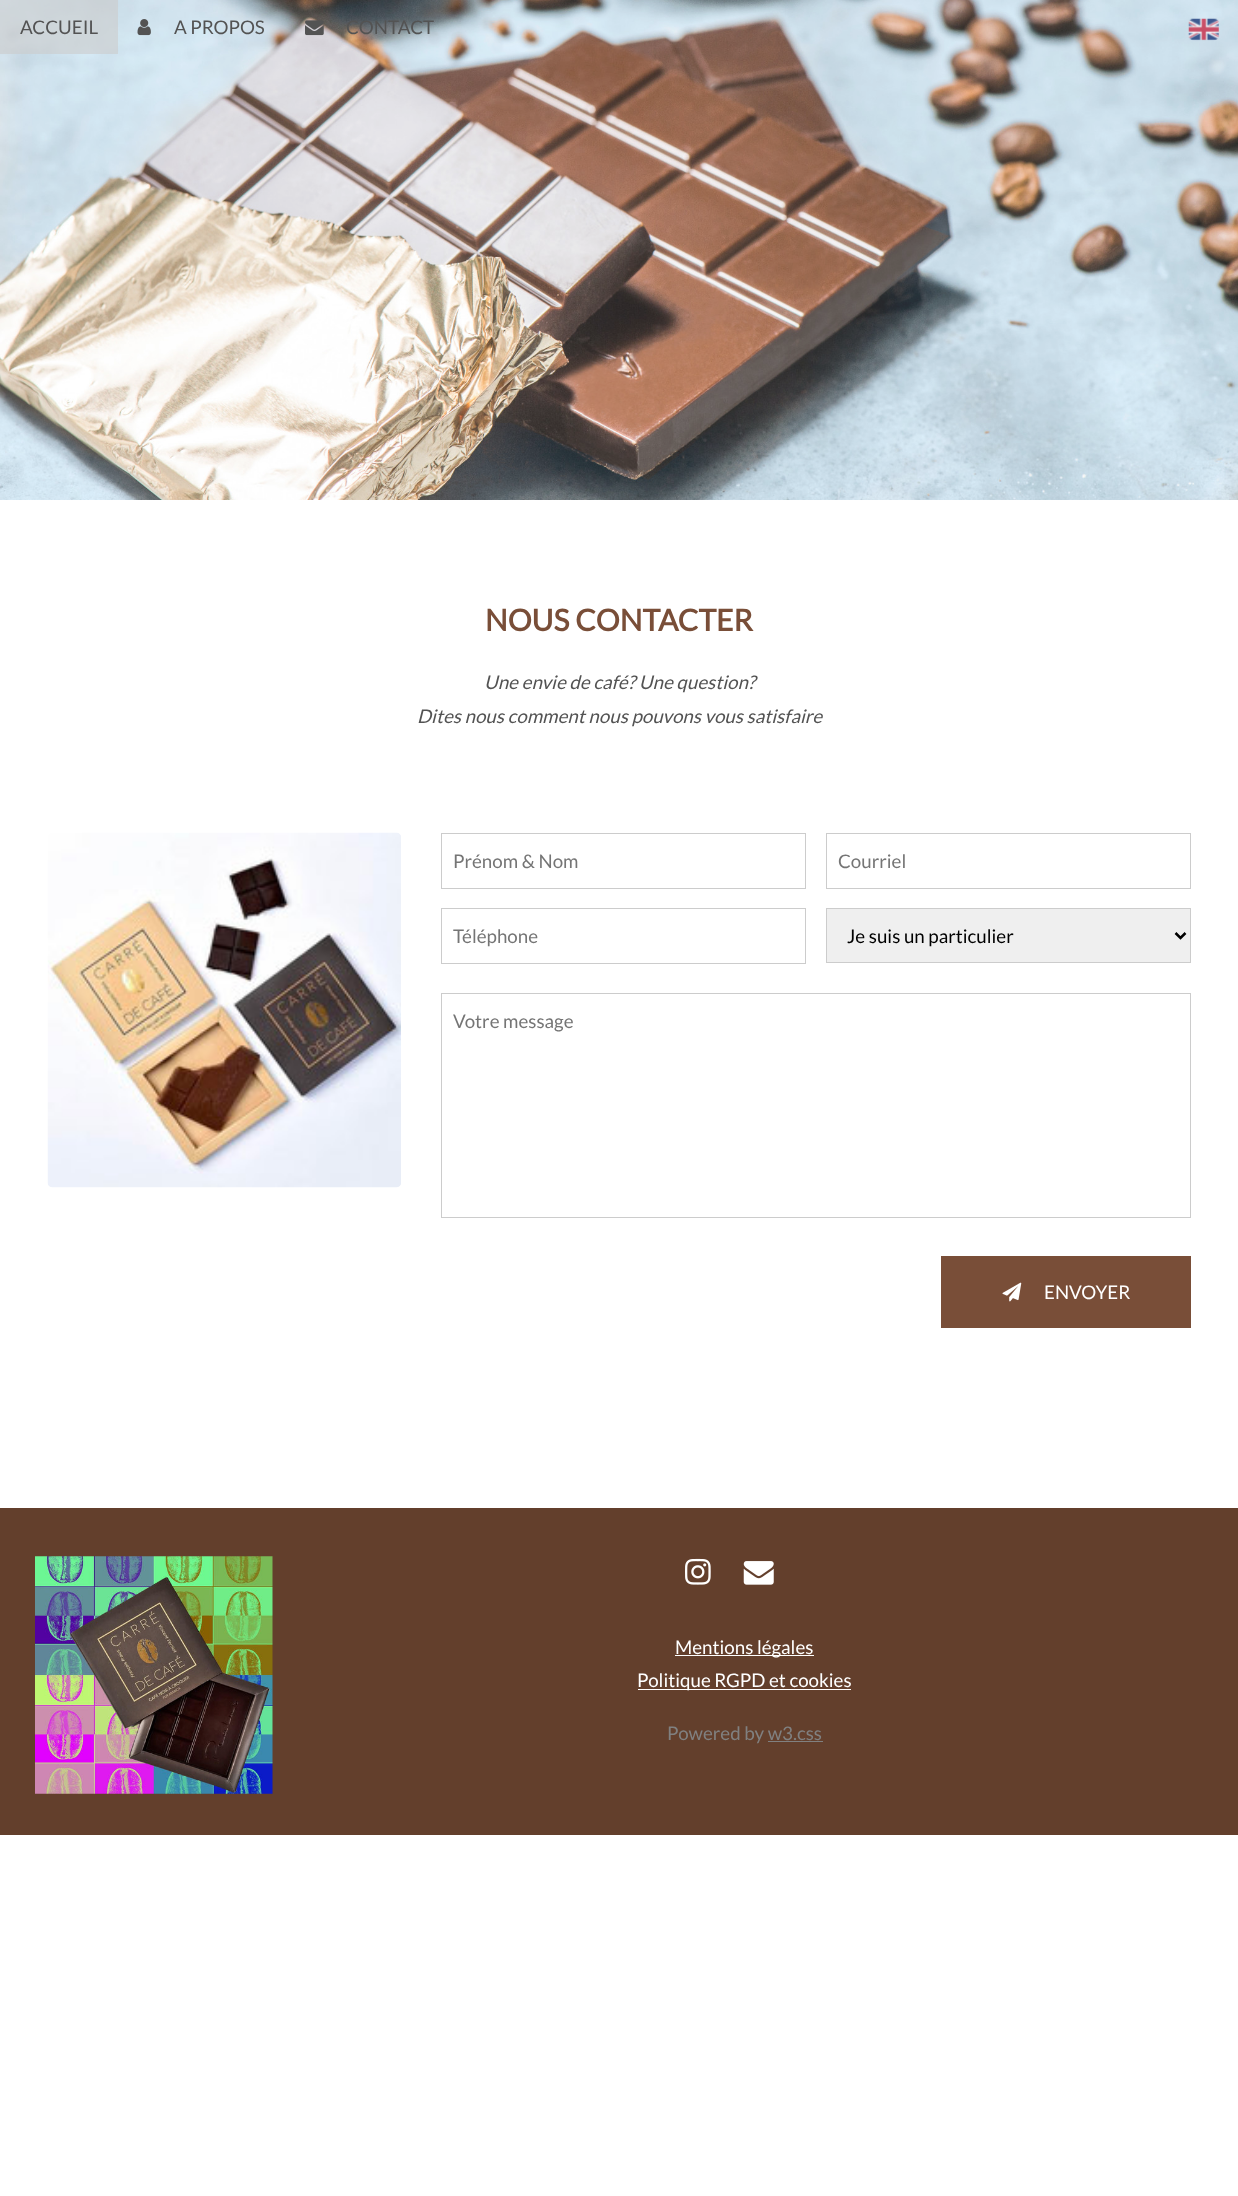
<?xml version="1.0" encoding="UTF-8"?>
<svg xmlns="http://www.w3.org/2000/svg" xmlns:xlink="http://www.w3.org/1999/xlink" width="1238" height="2196">
  <rect width="100%" height="100%" fill="#ffffff" />
  <image x="0" y="0" width="1238" height="500" xlink:href="image1.png" />
  <rect width="118" height="54" fill="#cccccc" fill-opacity="0.6" />
  <image x="137" y="19" width="14" height="17" xlink:href="image2.png" />
  <image x="305" y="20" width="19" height="16" xlink:href="image3.png" />
  <image x="1188" y="18" width="31" height="23" xlink:href="image4.png" />
  <image x="47" y="832" width="354" height="356" xlink:href="image5.png" />
  <rect x="441.5" y="833.5" width="364" height="55" fill="none" stroke="#cccccc" />
  <rect x="826.5" y="833.5" width="364" height="55" fill="none" stroke="#cccccc" />
  <rect x="441.5" y="908.5" width="364" height="55" fill="none" stroke="#cccccc" />
  <rect x="826.5" y="908.5" width="364" height="54" fill="#efefef" stroke="#cccccc" />
  <path d="M 1175.5 933 l 5 5 l 5 -5" fill="none" stroke="#000000" stroke-width="2.5" />
  <rect x="441.5" y="993.5" width="749" height="224" fill="none" stroke="#cccccc" />
  <rect x="941" y="1256" width="250" height="72" fill="#794e38" />
  <image x="1002" y="1282" width="20" height="20" xlink:href="image6.png" />
  <rect y="1508" width="1238" height="327" fill="#633f2c" />
  <image x="35" y="1556" width="238" height="238" xlink:href="image7.png" />
  <image x="685" y="1558" width="26" height="27" xlink:href="image8.png" />
  <image x="743" y="1561" width="31" height="24" xlink:href="image9.png" />
  <rect x="675" y="1655" width="139" height="1" fill="#ffffff" />
  <rect x="638" y="1689" width="213" height="1" fill="#ffffff" />
  <rect x="768" y="1741" width="55" height="1" fill="#808080" />
  <text x="20" y="34" style="font-family: Lato; font-size: 18.75px; fill: #535353">ACCUEIL</text>
  <text x="174" y="34" style="font-family: Lato; font-size: 18.75px; fill: #535353">A PROPOS</text>
  <text x="346" y="34" style="font-family: Lato; font-size: 18.75px; fill: #535353">CONTACT</text>
  <text x="485" y="631" style="font-family: Lato; font-size: 30px; font-weight: bold; fill: #794e38">NOUS CONTACTER</text>
  <text x="484" y="689" style="font-family: Lato; font-size: 18.75px; font-style: italic; fill: #535353">Une envie de café? Une question?</text>
  <text x="417" y="723" style="font-family: Lato; font-size: 18.75px; font-style: italic; fill: #535353">Dites nous comment nous pouvons vous satisfaire</text>
  <text x="453" y="868" style="font-family: Lato; font-size: 18.75px; fill: #757575">Prénom &amp; Nom</text>
  <text x="838" y="868" style="font-family: Lato; font-size: 18.75px; fill: #757575">Courriel</text>
  <text x="453" y="943" style="font-family: Lato; font-size: 18.75px; fill: #757575">Téléphone</text>
  <text x="847" y="943" style="font-family: Lato; font-size: 18.75px; fill: #000000">Je suis un particulier</text>
  <text x="453" y="1028" style="font-family: Lato; font-size: 18.75px; fill: #757575">Votre message</text>
  <text x="1044" y="1299" style="font-family: Lato; font-size: 18.75px; fill: #ffffff">ENVOYER</text>
  <text x="675" y="1654" style="font-family: Lato; font-size: 18.75px; fill: #ffffff">Mentions légales</text>
  <text x="637" y="1687" style="font-family: Lato; font-size: 18.75px; fill: #ffffff">Politique RGPD et cookies</text>
  <text x="667" y="1740" style="font-family: Lato; font-size: 18.75px; fill: #808080">Powered by w3.css</text>
</svg>
